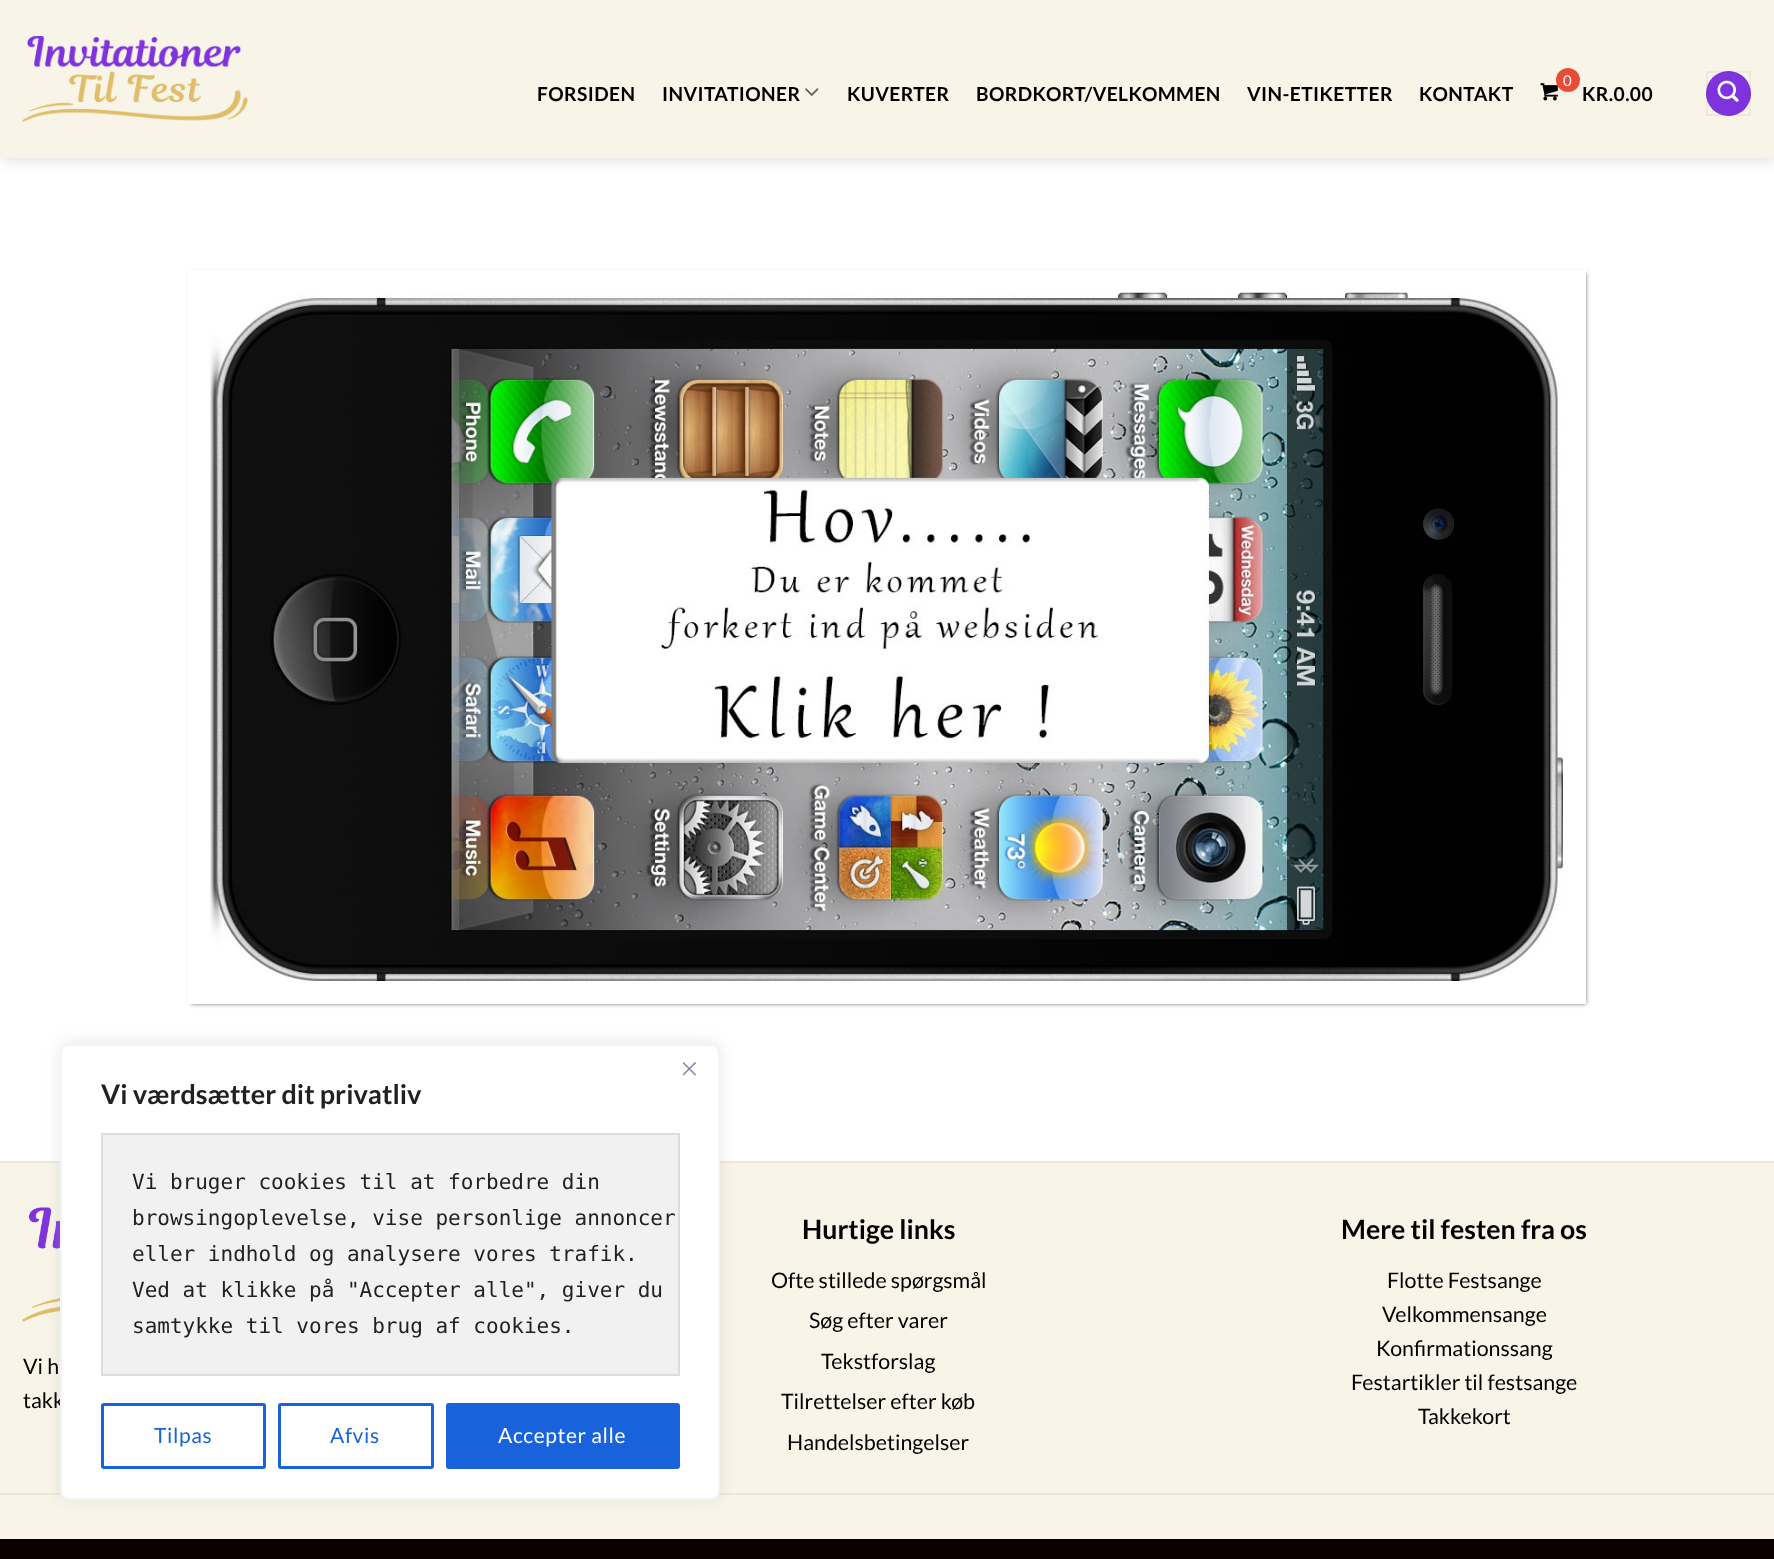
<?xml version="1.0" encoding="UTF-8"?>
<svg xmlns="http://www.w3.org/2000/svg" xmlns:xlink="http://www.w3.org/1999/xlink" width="1774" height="1559">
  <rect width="100%" height="100%" fill="#ffffff" />
  <rect x="2" y="2" width="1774" height="157" fill="#000000" fill-opacity="0.15" filter="blur(7.5px)" />
  <rect width="1774" height="158" fill="#f8f5e8" />
  <image x="22" y="36" width="226" height="86" xlink:href="image1.png" />
  <image x="805" y="88" width="14" height="8" xlink:href="image2.png" />
  <image x="1540" y="83" width="18" height="18" xlink:href="image3.png" />
  <circle cx="1568" cy="80" r="12" fill="#e94b35" />
  <circle cx="1728.5" cy="93.5" r="22.5" fill="#7f33dd" />
  <rect x="1707" y="72" width="43" height="43" fill="none" stroke="#000000" stroke-opacity="0.05" stroke-width="2" />
  <image x="1717" y="80" width="22" height="22" xlink:href="image4.png" />
  <rect x="191" y="273" width="1395" height="731" fill="#777777" filter="blur(2px)" />
  <rect x="188" y="270" width="1398" height="734" fill="#ffffff" />
  <image x="210" y="292" width="1353" height="689" xlink:href="image5.png" />
  <rect y="1163" width="1774" height="330" fill="#f8f5e8" />
  <rect y="1161" width="1774" height="2" fill="#ece9dc" />
  <image x="22" y="1207" width="38" height="115" xlink:href="image6.png" />
  <rect y="1495" width="1774" height="44" fill="#f8f5e8" />
  <rect y="1493" width="1774" height="2" fill="#ece9dc" />
  <rect y="1539" width="1774" height="20" fill="#0a0000" />
  <rect x="60" y="1043" width="660" height="456" rx="9" fill="#acabab" fill-opacity="0.3" filter="blur(7.5px)" />
  <text x="537" y="101" style="font-family: Lato; font-size: 19.25px; font-weight: bold; letter-spacing: 0.4px; fill: #000000">FORSIDEN</text>
  <text x="662" y="101" style="font-family: Lato; font-size: 19.25px; font-weight: bold; letter-spacing: 0.4px; fill: #000000">INVITATIONER</text>
  <text x="847" y="101" style="font-family: Lato; font-size: 19.25px; font-weight: bold; letter-spacing: 0.4px; fill: #000000">KUVERTER</text>
  <text x="976" y="101" style="font-family: Lato; font-size: 19.25px; font-weight: bold; letter-spacing: 0.4px; fill: #000000">BORDKORT/VELKOMMEN</text>
  <text x="1247" y="101" style="font-family: Lato; font-size: 19.25px; font-weight: bold; letter-spacing: 0.4px; fill: #000000">VIN-ETIKETTER</text>
  <text x="1419" y="101" style="font-family: Lato; font-size: 19.25px; font-weight: bold; letter-spacing: 0.4px; fill: #000000">KONTAKT</text>
  <text x="1563" y="86" style="font-family: Lato; font-size: 15px; letter-spacing: 0.4px; fill: #ffffff">0</text>
  <text x="1582" y="101" style="font-family: Lato; font-size: 19.25px; font-weight: bold; letter-spacing: 0.4px; fill: #000000">KR.0.00</text>
  <text x="23" y="1374" style="font-family: Lato; font-size: 21.4px; fill: #000000">Vi h</text>
  <text x="23" y="1408" style="font-family: Lato; font-size: 21.4px; fill: #000000">takk</text>
  <text x="802" y="1239" style="font-family: Lato; font-size: 26.75px; font-weight: bold; fill: #000000">Hurtige links</text>
  <text x="771" y="1288" style="font-family: Lato; font-size: 21.4px; fill: #000000">Ofte stillede spørgsmål</text>
  <text x="809" y="1328" style="font-family: Lato; font-size: 21.4px; fill: #000000">Søg efter varer</text>
  <text x="821" y="1369" style="font-family: Lato; font-size: 21.4px; fill: #000000">Tekstforslag</text>
  <text x="781" y="1409" style="font-family: Lato; font-size: 21.4px; fill: #000000">Tilrettelser efter køb</text>
  <text x="787" y="1450" style="font-family: Lato; font-size: 21.4px; fill: #000000">Handelsbetingelser</text>
  <text x="1341" y="1239" style="font-family: Lato; font-size: 26.75px; font-weight: bold; fill: #000000">Mere til festen fra os</text>
  <text x="1387" y="1288" style="font-family: Lato; font-size: 21.4px; fill: #000000">Flotte Festsange</text>
  <text x="1382" y="1322" style="font-family: Lato; font-size: 21.4px; fill: #000000">Velkommensange</text>
  <text x="1376" y="1356" style="font-family: Lato; font-size: 21.4px; fill: #000000">Konfirmationssang</text>
  <text x="1351" y="1390" style="font-family: Lato; font-size: 21.4px; fill: #000000">Festartikler til festsange</text>
  <text x="1418" y="1424" style="font-family: Lato; font-size: 21.4px; fill: #000000">Takkekort</text>
  <rect x="61" y="1045" width="658" height="454" rx="8" fill="#ffffff" stroke="#f4f4f4" stroke-width="2" />
  <image x="683" y="1062" width="13" height="14" xlink:href="image7.png" />
  <text x="101" y="1104" style="font-family: Lato; font-size: 27px; font-weight: bold; fill: #212121">Vi værdsætter dit privatliv</text>
  <rect x="102" y="1134" width="577" height="241" fill="#f1f1f1" stroke="#dddddd" stroke-width="2" />
  <text x="132" y="1189" style="font-family: DejaVu Sans Mono; font-size: 21px; fill: #212121">Vi bruger cookies til at forbedre din</text>
  <text x="132" y="1225" style="font-family: DejaVu Sans Mono; font-size: 21px; fill: #212121">browsingoplevelse, vise personlige annoncer</text>
  <text x="132" y="1261" style="font-family: DejaVu Sans Mono; font-size: 21px; fill: #212121">eller indhold og analysere vores trafik.</text>
  <text x="132" y="1297" style="font-family: DejaVu Sans Mono; font-size: 21px; fill: #212121">Ved at klikke på "Accepter alle", giver du</text>
  <text x="132" y="1333" style="font-family: DejaVu Sans Mono; font-size: 21px; fill: #212121">samtykke til vores brug af cookies.</text>
  <rect x="102.5" y="1404.5" width="162" height="63" rx="1.5" fill="none" stroke="#1863dc" stroke-width="3" />
  <text x="154" y="1443" style="font-family: Lato; font-size: 21px; letter-spacing: 0.6px; fill: #1863dc">Tilpas</text>
  <rect x="279.5" y="1404.5" width="153" height="63" rx="1.5" fill="none" stroke="#1863dc" stroke-width="3" />
  <text x="330" y="1443" style="font-family: Lato; font-size: 21px; letter-spacing: 0.6px; fill: #1863dc">Afvis</text>
  <rect x="447.5" y="1404.5" width="231" height="63" rx="1.5" fill="#1863dc" stroke="#1863dc" stroke-width="3" />
  <text x="498" y="1443" style="font-family: Lato; font-size: 21px; letter-spacing: 0.6px; fill: #ffffff">Accepter alle</text>
</svg>
